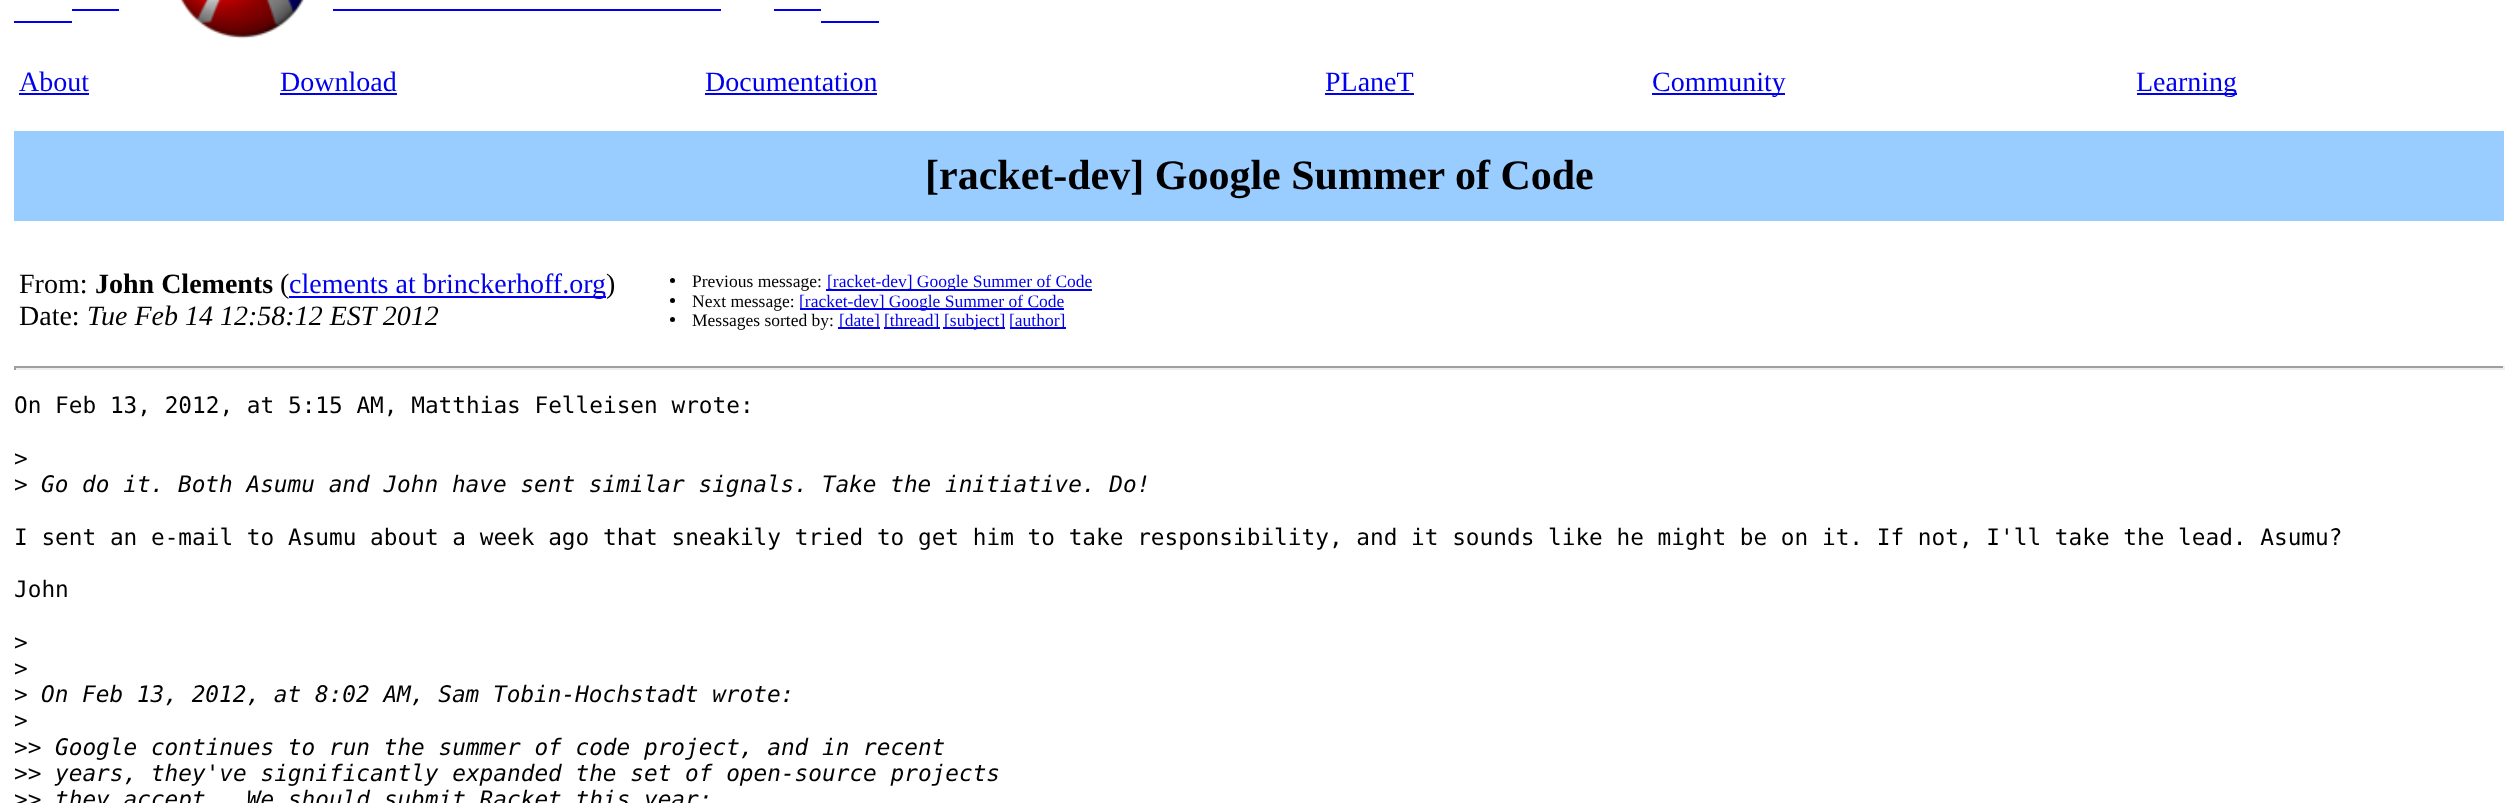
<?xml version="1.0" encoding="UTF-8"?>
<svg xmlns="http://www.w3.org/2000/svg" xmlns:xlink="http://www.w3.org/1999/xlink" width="2518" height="803">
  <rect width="100%" height="100%" fill="#ffffff" />
  <rect x="72" y="9" width="47" height="2" fill="#0000ee" />
  <image x="180" y="0" width="124" height="39" xlink:href="image1.png" />
  <rect x="333" y="9" width="388" height="2" fill="#0000ee" />
  <rect x="774" y="9" width="47" height="2" fill="#0000ee" />
  <rect x="14" y="21" width="58" height="2" fill="#0000ee" />
  <rect x="821" y="21" width="58" height="2" fill="#0000ee" />
  <rect x="19" y="93" width="70" height="2" fill="#0000ee" />
  <rect x="280" y="93" width="117" height="2" fill="#0000ee" />
  <rect x="705" y="93" width="172" height="2" fill="#0000ee" />
  <rect x="1325" y="93" width="89" height="2" fill="#0000ee" />
  <rect x="1652" y="93" width="133" height="2" fill="#0000ee" />
  <rect x="2137" y="93" width="100" height="2" fill="#0000ee" />
  <rect x="14" y="131" width="2490" height="90" fill="#99ccff" />
  <rect x="289" y="296" width="317" height="2" fill="#0000ee" />
  <circle cx="672.5" cy="280.5" r="2.5" fill="#000000" />
  <rect x="826" y="289" width="266" height="2" fill="#0000ee" />
  <circle cx="672.5" cy="300.5" r="2.5" fill="#000000" />
  <rect x="800" y="308" width="264" height="2" fill="#0000ee" />
  <circle cx="672.5" cy="319.5" r="2.5" fill="#000000" />
  <rect x="838" y="327" width="42" height="2" fill="#0000ee" />
  <rect x="884" y="327" width="56" height="2" fill="#0000ee" />
  <rect x="943" y="327" width="62" height="2" fill="#0000ee" />
  <rect x="1010" y="327" width="56" height="2" fill="#0000ee" />
  <rect x="14" y="366" width="2490" height="2" fill="#9f9f9f" />
  <rect x="2503" y="366" width="2" height="4" fill="#eeeeee" />
  <rect x="14" y="368" width="2490" height="2" fill="#eeeeee" />
  <rect x="14" y="366" width="2" height="4" fill="#9f9f9f" />
  <text x="19" y="91" style="font-family: Liberation Serif; font-size: 28px; fill: #0000ee">About</text>
  <text x="280" y="91" style="font-family: Liberation Serif; font-size: 28px; fill: #0000ee">Download</text>
  <text x="705" y="91" style="font-family: Liberation Serif; font-size: 28px; fill: #0000ee">Documentation</text>
  <text x="1325" y="91" style="font-family: Liberation Serif; font-size: 28px; fill: #0000ee">PLaneT</text>
  <text x="1652" y="91" style="font-family: Liberation Serif; font-size: 28px; fill: #0000ee">Community</text>
  <text x="2136" y="91" style="font-family: Liberation Serif; font-size: 28px; fill: #0000ee">Learning</text>
  <text x="925" y="189" style="font-family: Liberation Serif; font-size: 42px; font-weight: bold; fill: #000000">[racket-dev] Google Summer of Code</text>
  <text x="19" y="293" style="font-family: Liberation Serif; font-size: 28px; fill: #000000">From:</text>
  <text x="95" y="293" style="font-family: Liberation Serif; font-size: 28px; font-weight: bold; fill: #000000">John Clements</text>
  <text x="280" y="293" style="font-family: Liberation Serif; font-size: 28px; fill: #000000">(</text>
  <text x="289" y="293" style="font-family: Liberation Serif; font-size: 28px; fill: #0000ee">clements at brinckerhoff.org</text>
  <text x="606" y="293" style="font-family: Liberation Serif; font-size: 28px; fill: #000000">)</text>
  <text x="19" y="325" style="font-family: Liberation Serif; font-size: 28px; fill: #000000">Date:</text>
  <text x="87" y="325" style="font-family: Liberation Serif; font-size: 28px; font-style: italic; fill: #000000">Tue Feb 14 12:58:12 EST 2012</text>
  <text x="692" y="287" style="font-family: Liberation Serif; font-size: 17.5px; fill: #000000">Previous message:</text>
  <text x="827" y="287" style="font-family: Liberation Serif; font-size: 17.5px; fill: #0000ee">[racket-dev] Google Summer of Code</text>
  <text x="692" y="307" style="font-family: Liberation Serif; font-size: 17.5px; fill: #000000">Next message:</text>
  <text x="799" y="307" style="font-family: Liberation Serif; font-size: 17.5px; fill: #0000ee">[racket-dev] Google Summer of Code</text>
  <text x="692" y="326" style="font-family: Liberation Serif; font-size: 17.5px; fill: #000000">Messages sorted by:</text>
  <text x="839" y="326" style="font-family: Liberation Serif; font-size: 17.5px; fill: #0000ee">[date]</text>
  <text x="884" y="326" style="font-family: Liberation Serif; font-size: 17.5px; fill: #0000ee">[thread]</text>
  <text x="944" y="326" style="font-family: Liberation Serif; font-size: 17.5px; fill: #0000ee">[subject]</text>
  <text x="1009" y="326" style="font-family: Liberation Serif; font-size: 17.5px; fill: #0000ee">[author]</text>
  <text x="14" y="413" style="font-family: DejaVu Sans Mono; font-size: 22.75px; fill: #000000">On Feb 13, 2012, at 5:15 AM, Matthias Felleisen wrote:</text>
  <text x="14" y="466" style="font-family: DejaVu Sans Mono; font-size: 22.75px; fill: #000000">&gt;</text>
  <text x="14" y="492" style="font-family: DejaVu Sans Mono; font-size: 22.75px; fill: #000000">&gt;</text>
  <text x="41" y="492" style="font-family: DejaVu Sans Mono; font-size: 22.75px; font-style: italic; fill: #000000">Go do it. Both Asumu and John have sent similar signals. Take the initiative. Do!</text>
  <text x="14" y="545" style="font-family: DejaVu Sans Mono; font-size: 22.75px; fill: #000000">I sent an e-mail to Asumu about a week ago that sneakily tried to get him to take responsibility, and it sounds like he might be on it. If not, I'll take the lead. Asumu?</text>
  <text x="14" y="597" style="font-family: DejaVu Sans Mono; font-size: 22.75px; fill: #000000">John</text>
  <text x="14" y="650" style="font-family: DejaVu Sans Mono; font-size: 22.75px; fill: #000000">&gt;</text>
  <text x="14" y="676" style="font-family: DejaVu Sans Mono; font-size: 22.75px; fill: #000000">&gt;</text>
  <text x="14" y="702" style="font-family: DejaVu Sans Mono; font-size: 22.75px; fill: #000000">&gt;</text>
  <text x="41" y="702" style="font-family: DejaVu Sans Mono; font-size: 22.75px; font-style: italic; fill: #000000">On Feb 13, 2012, at 8:02 AM, Sam Tobin-Hochstadt wrote:</text>
  <text x="14" y="728" style="font-family: DejaVu Sans Mono; font-size: 22.75px; fill: #000000">&gt;</text>
  <text x="14" y="755" style="font-family: DejaVu Sans Mono; font-size: 22.75px; fill: #000000">&gt;&gt;</text>
  <text x="55" y="755" style="font-family: DejaVu Sans Mono; font-size: 22.75px; font-style: italic; fill: #000000">Google continues to run the summer of code project, and in recent</text>
  <text x="14" y="781" style="font-family: DejaVu Sans Mono; font-size: 22.75px; fill: #000000">&gt;&gt;</text>
  <text x="55" y="781" style="font-family: DejaVu Sans Mono; font-size: 22.75px; font-style: italic; fill: #000000">years, they've significantly expanded the set of open-source projects</text>
  <text x="14" y="807" style="font-family: DejaVu Sans Mono; font-size: 22.75px; fill: #000000">&gt;&gt;</text>
  <text x="55" y="807" style="font-family: DejaVu Sans Mono; font-size: 22.75px; font-style: italic; fill: #000000" xml:space="preserve">they accept.  We should submit Racket this year:</text>
</svg>
